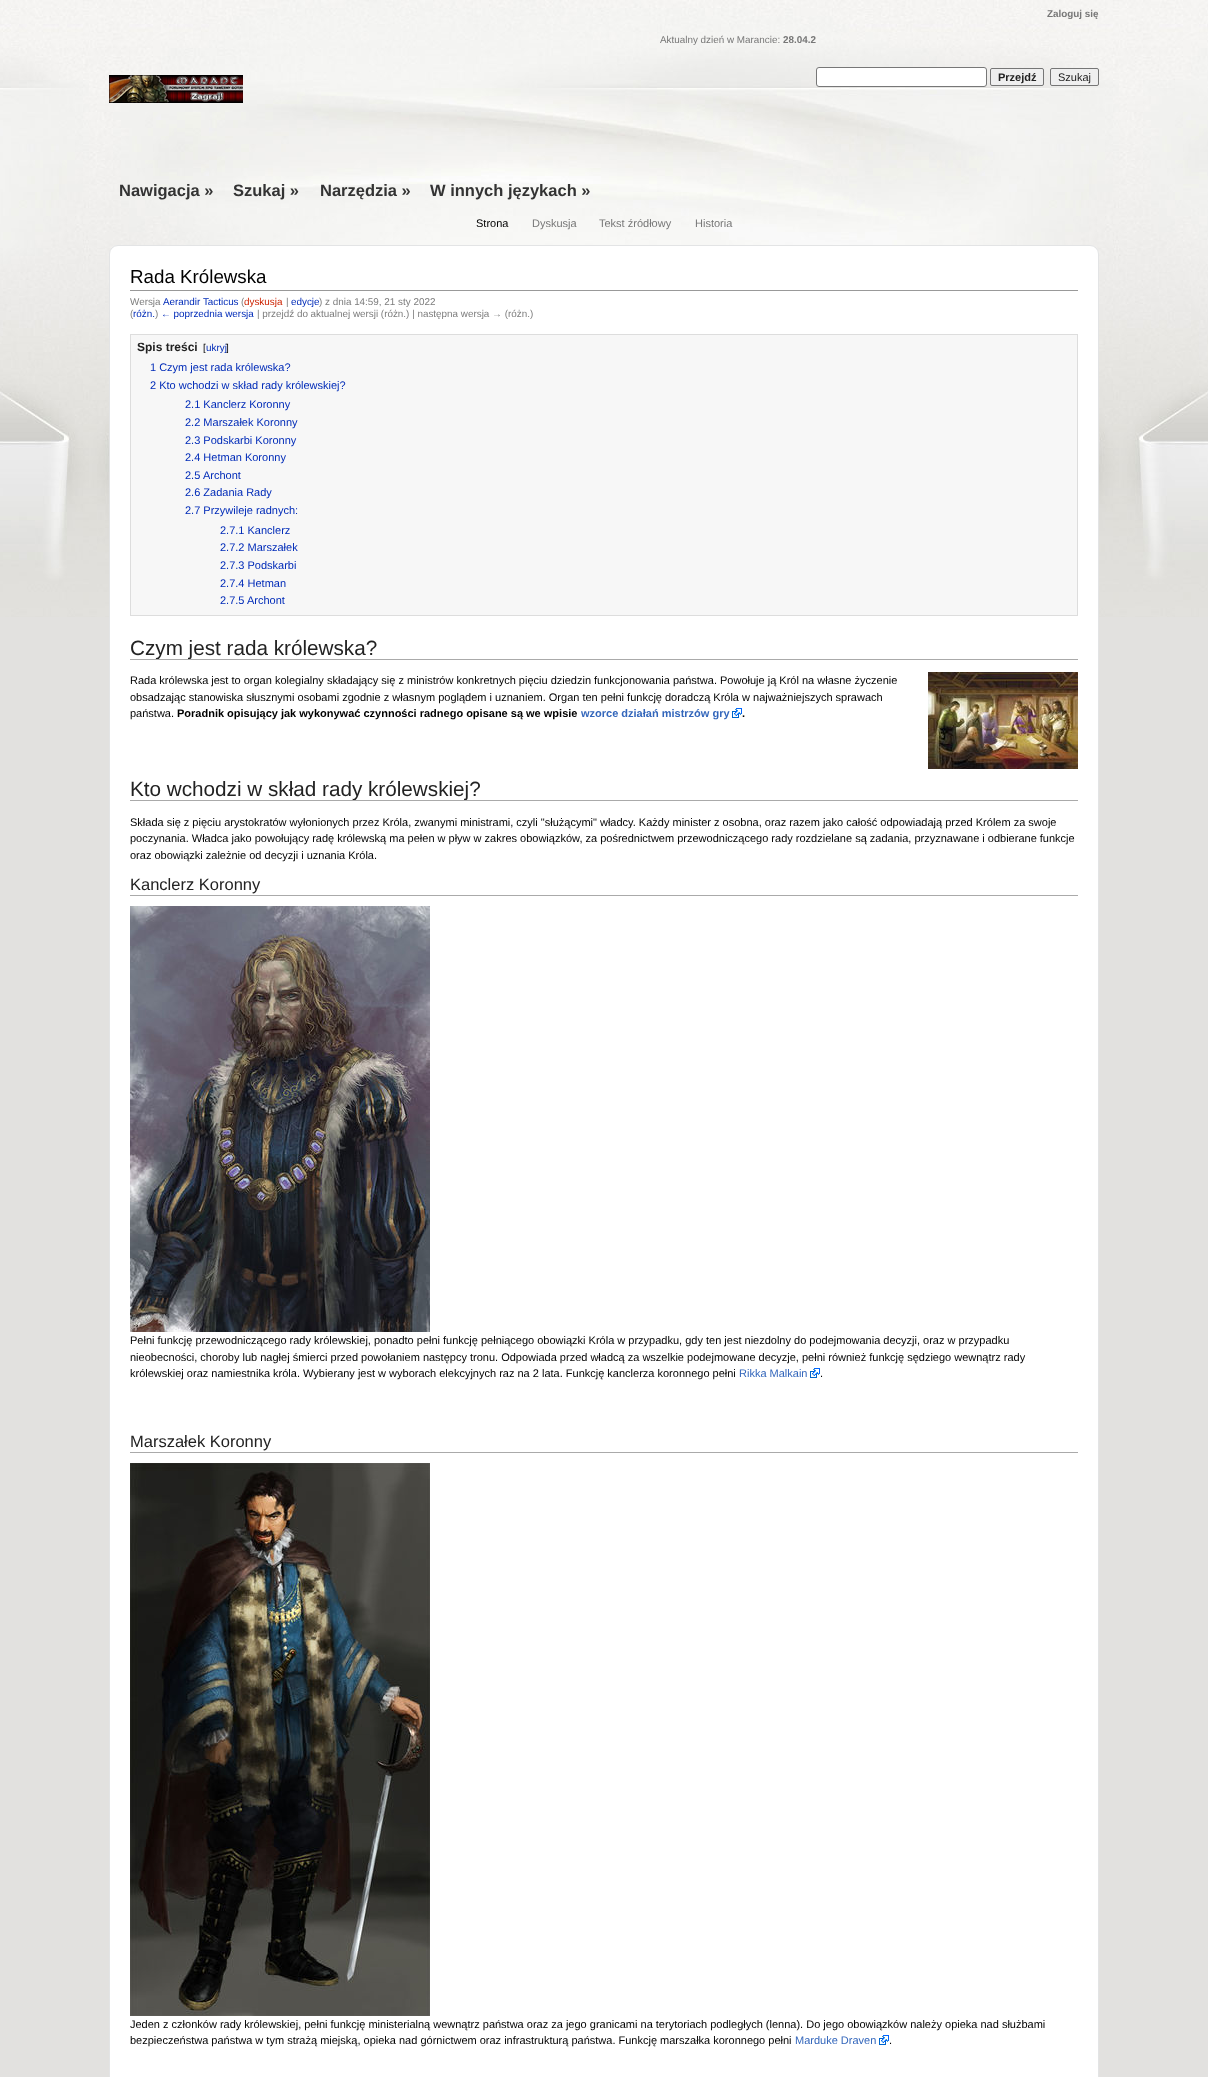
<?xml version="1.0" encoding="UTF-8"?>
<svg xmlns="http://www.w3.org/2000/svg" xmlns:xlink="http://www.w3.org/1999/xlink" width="1208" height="2077">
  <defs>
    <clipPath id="clip1"><rect x="130" y="630" width="948" height="29" /></clipPath>
    <clipPath id="clip2"><rect x="130" y="771" width="948" height="29" /></clipPath>
  </defs>
  <rect width="100%" height="100%" fill="#e2e1df" />
  <image x="0" y="0" width="1208" height="617" xlink:href="image1.png" />
  <image x="109" y="75" width="134" height="28" xlink:href="image2.png" />
  <rect x="816.5" y="67.5" width="170" height="19" rx="2.5" fill="#ffffff" stroke="#777777" />
  <rect x="990.5" y="68.5" width="53" height="17" rx="1.5" fill="#efefef" stroke="#767676" />
  <rect x="1050.5" y="68.5" width="48" height="17" rx="1.5" fill="#efefef" stroke="#767676" />
  <rect x="109.5" y="245.5" width="989" height="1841" rx="8.5" fill="#ffffff" stroke="#e3e4e5" />
  <rect x="130" y="290" width="948" height="1" fill="#999999" />
  <rect x="130.5" y="334.5" width="947" height="281" fill="#f7f7f7" stroke="#dddddd" />
  <rect x="130" y="659" width="948" height="1" fill="#aaaaaa" />
  <image x="732" y="708" width="10" height="10" xlink:href="image3.png" />
  <image x="928" y="672" width="150" height="97" xlink:href="image4.png" />
  <rect x="130" y="800" width="948" height="1" fill="#aaaaaa" />
  <rect x="130" y="895" width="948" height="1" fill="#aaaaaa" />
  <image x="130" y="906" width="300" height="426" xlink:href="image5.png" />
  <image x="810" y="1368" width="10" height="10" xlink:href="image3.png" />
  <rect x="130" y="1452" width="948" height="1" fill="#aaaaaa" />
  <image x="130" y="1463" width="300" height="553" xlink:href="image6.png" />
  <image x="879" y="2035" width="10" height="10" xlink:href="image3.png" />
  <text x="660" y="43" style="font-family: Liberation Sans; font-size: 9.9px; fill: #777777">Aktualny dzień w Marancie:</text>
  <text x="783" y="43" style="font-family: Liberation Sans; font-size: 9.9px; font-weight: bold; fill: #777777">28.04.2</text>
  <text x="1047" y="17" style="font-family: Liberation Sans; font-size: 9.9px; font-weight: bold; fill: #777777">Zaloguj się</text>
  <text x="998" y="81" style="font-family: Liberation Sans; font-size: 11px; font-weight: bold; fill: #222222">Przejdź</text>
  <text x="1058" y="81" style="font-family: Liberation Sans; font-size: 11px; fill: #222222">Szukaj</text>
  <text x="119" y="196" style="font-family: Liberation Sans; font-size: 16.5px; font-weight: bold; fill: #333333">Nawigacja »</text>
  <text x="233" y="196" style="font-family: Liberation Sans; font-size: 16.5px; font-weight: bold; fill: #333333">Szukaj »</text>
  <text x="320" y="196" style="font-family: Liberation Sans; font-size: 16.5px; font-weight: bold; fill: #333333">Narzędzia »</text>
  <text x="430" y="196" style="font-family: Liberation Sans; font-size: 16.5px; font-weight: bold; fill: #333333">W innych językach »</text>
  <text x="476" y="227" style="font-family: Liberation Sans; font-size: 11px; fill: #000000">Strona</text>
  <text x="532" y="227" style="font-family: Liberation Sans; font-size: 11px; fill: #777777">Dyskusja</text>
  <text x="599" y="227" style="font-family: Liberation Sans; font-size: 11px; fill: #777777">Tekst źródłowy</text>
  <text x="695" y="227" style="font-family: Liberation Sans; font-size: 11px; fill: #777777">Historia</text>
  <text x="130" y="283" style="font-family: Liberation Sans; font-size: 18.75px; fill: #000000">Rada Królewska</text>
  <text x="130" y="305" style="font-family: Liberation Sans; font-size: 9.9px; fill: #7d7d7d">Wersja</text>
  <text x="163" y="305" style="font-family: Liberation Sans; font-size: 9.9px; fill: #002bb8">Aerandir Tacticus</text>
  <text x="241" y="305" style="font-family: Liberation Sans; font-size: 9.9px; fill: #7d7d7d">(</text>
  <text x="244" y="305" style="font-family: Liberation Sans; font-size: 9.9px; fill: #cc2200">dyskusja</text>
  <text x="286" y="305" style="font-family: Liberation Sans; font-size: 9.9px; fill: #7d7d7d">|</text>
  <text x="291" y="305" style="font-family: Liberation Sans; font-size: 9.9px; fill: #002bb8">edycje</text>
  <text x="319" y="305" style="font-family: Liberation Sans; font-size: 9.9px; fill: #7d7d7d">) z dnia 14:59, 21 sty 2022</text>
  <text x="130" y="317" style="font-family: Liberation Sans; font-size: 9.9px; fill: #7d7d7d">(</text>
  <text x="133" y="317" style="font-family: Liberation Sans; font-size: 9.9px; fill: #002bb8">różn.</text>
  <text x="155" y="317" style="font-family: Liberation Sans; font-size: 9.9px; fill: #7d7d7d">)</text>
  <text x="161" y="317" style="font-family: Liberation Sans; font-size: 9.9px; fill: #002bb8">← poprzednia wersja</text>
  <text x="257" y="317" style="font-family: Liberation Sans; font-size: 9.9px; fill: #7d7d7d">| przejdź do aktualnej wersji (różn.) | następna wersja → (różn.)</text>
  <text x="137" y="351" style="font-family: Liberation Sans; font-size: 12px; font-weight: bold; fill: #222222">Spis treści</text>
  <text x="203" y="351" style="font-family: Liberation Sans; font-size: 9.9px; fill: #000000">[</text>
  <text x="206" y="351" style="font-family: Liberation Sans; font-size: 9.9px; fill: #002bb8">ukryj</text>
  <text x="226" y="351" style="font-family: Liberation Sans; font-size: 9.9px; fill: #000000">]</text>
  <text x="150" y="371" style="font-family: Liberation Sans; font-size: 11px; fill: #002bb8">1 Czym jest rada królewska?</text>
  <text x="150" y="389" style="font-family: Liberation Sans; font-size: 11px; fill: #002bb8">2 Kto wchodzi w skład rady królewskiej?</text>
  <text x="185" y="408" style="font-family: Liberation Sans; font-size: 11px; fill: #002bb8">2.1 Kanclerz Koronny</text>
  <text x="185" y="426" style="font-family: Liberation Sans; font-size: 11px; fill: #002bb8">2.2 Marszałek Koronny</text>
  <text x="185" y="444" style="font-family: Liberation Sans; font-size: 11px; fill: #002bb8">2.3 Podskarbi Koronny</text>
  <text x="185" y="461" style="font-family: Liberation Sans; font-size: 11px; fill: #002bb8">2.4 Hetman Koronny</text>
  <text x="185" y="479" style="font-family: Liberation Sans; font-size: 11px; fill: #002bb8">2.5</text>
  <text x="203" y="479" style="font-family: Liberation Sans; font-size: 11px; fill: #002bb8">Archont</text>
  <text x="185" y="496" style="font-family: Liberation Sans; font-size: 11px; fill: #002bb8">2.6 Zadania Rady</text>
  <text x="185" y="514" style="font-family: Liberation Sans; font-size: 11px; fill: #002bb8">2.7 Przywileje radnych:</text>
  <text x="220" y="534" style="font-family: Liberation Sans; font-size: 11px; fill: #002bb8">2.7.1 Kanclerz</text>
  <text x="220" y="551" style="font-family: Liberation Sans; font-size: 11px; fill: #002bb8">2.7.2 Marszałek</text>
  <text x="220" y="569" style="font-family: Liberation Sans; font-size: 11px; fill: #002bb8">2.7.3 Podskarbi</text>
  <text x="220" y="587" style="font-family: Liberation Sans; font-size: 11px; fill: #002bb8">2.7.4 Hetman</text>
  <text x="220" y="604" style="font-family: Liberation Sans; font-size: 11px; fill: #002bb8">2.7.5</text>
  <text x="247" y="604" style="font-family: Liberation Sans; font-size: 11px; fill: #002bb8">Archont</text>
  <g clip-path="url(#clip1)">
    <text x="130" y="655" style="font-family: Liberation Sans; font-size: 20.7px; fill: #222222">Czym jest rada królewska?</text>
  </g>
  <text x="130" y="684" style="font-family: Liberation Sans; font-size: 11px; fill: #000000">Rada królewska jest to organ kolegialny składający się z ministrów konkretnych pięciu dziedzin funkcjonowania państwa. Powołuje ją Król na własne życzenie</text>
  <text x="130" y="701" style="font-family: Liberation Sans; font-size: 11px; fill: #000000">obsadzając stanowiska słusznymi osobami zgodnie z własnym poglądem i uznaniem. Organ ten pełni funkcję doradczą Króla w najważniejszych sprawach</text>
  <text x="130" y="717" style="font-family: Liberation Sans; font-size: 11px; fill: #000000">państwa.</text>
  <text x="177" y="717" style="font-family: Liberation Sans; font-size: 11px; font-weight: bold; fill: #000000">Poradnik opisujący jak wykonywać czynności radnego opisane są we wpisie</text>
  <text x="581" y="717" style="font-family: Liberation Sans; font-size: 11px; font-weight: bold; fill: #3366bb">wzorce działań mistrzów gry</text>
  <text x="742" y="717" style="font-family: Liberation Sans; font-size: 11px; font-weight: bold; fill: #000000">.</text>
  <g clip-path="url(#clip2)">
    <text x="130" y="796" style="font-family: Liberation Sans; font-size: 20.7px; fill: #222222">Kto wchodzi w skład rady królewskiej?</text>
  </g>
  <text x="130" y="826" style="font-family: Liberation Sans; font-size: 11px; fill: #000000">Składa się z pięciu arystokratów wyłonionych przez Króla, zwanymi ministrami, czyli "służącymi" władcy. Każdy minister z osobna, oraz razem jako całość odpowiadają przed Królem za swoje</text>
  <text x="130" y="842" style="font-family: Liberation Sans; font-size: 11px; fill: #000000">poczynania. Władca jako powołujący radę królewską ma pełen w pływ w zakres obowiązków, za pośrednictwem przewodniczącego rady rozdzielane są zadania, przyznawane i odbierane funkcje</text>
  <text x="130" y="859" style="font-family: Liberation Sans; font-size: 11px; fill: #000000">oraz obowiązki zależnie od decyzji i uznania Króla.</text>
  <text x="130" y="890" style="font-family: Liberation Sans; font-size: 16.5px; fill: #222222">Kanclerz Koronny</text>
  <text x="130" y="1344" style="font-family: Liberation Sans; font-size: 11px; fill: #000000">Pełni funkcję przewodniczącego rady królewskiej, ponadto pełni funkcję pełniącego obowiązki Króla w przypadku, gdy ten jest niezdolny do podejmowania decyzji, oraz w przypadku</text>
  <text x="130" y="1361" style="font-family: Liberation Sans; font-size: 11px; fill: #000000">nieobecności, choroby lub nagłej śmierci przed powołaniem następcy tronu. Odpowiada przed władcą za wszelkie podejmowane decyzje, pełni również funkcję sędziego wewnątrz rady</text>
  <text x="130" y="1377" style="font-family: Liberation Sans; font-size: 11px; fill: #000000">królewskiej oraz namiestnika króla. Wybierany jest w wyborach elekcyjnych raz na 2 lata. Funkcję kanclerza koronnego pełni</text>
  <text x="739" y="1377" style="font-family: Liberation Sans; font-size: 11px; fill: #3366bb">Rikka Malkain</text>
  <text x="820" y="1377" style="font-family: Liberation Sans; font-size: 11px; fill: #000000">.</text>
  <text x="130" y="1447" style="font-family: Liberation Sans; font-size: 16.5px; fill: #222222">Marszałek Koronny</text>
  <text x="130" y="2028" style="font-family: Liberation Sans; font-size: 11px; fill: #000000">Jeden z członków rady królewskiej, pełni funkcję ministerialną wewnątrz państwa oraz za jego granicami na terytoriach podległych (lenna). Do jego obowiązków należy opieka nad służbami</text>
  <text x="130" y="2044" style="font-family: Liberation Sans; font-size: 11px; fill: #000000">bezpieczeństwa państwa w tym strażą miejską, opieka nad górnictwem oraz infrastrukturą państwa. Funkcję marszałka koronnego pełni</text>
  <text x="795" y="2044" style="font-family: Liberation Sans; font-size: 11px; fill: #3366bb">Marduke Draven</text>
  <text x="889" y="2044" style="font-family: Liberation Sans; font-size: 11px; fill: #000000">.</text>
</svg>
